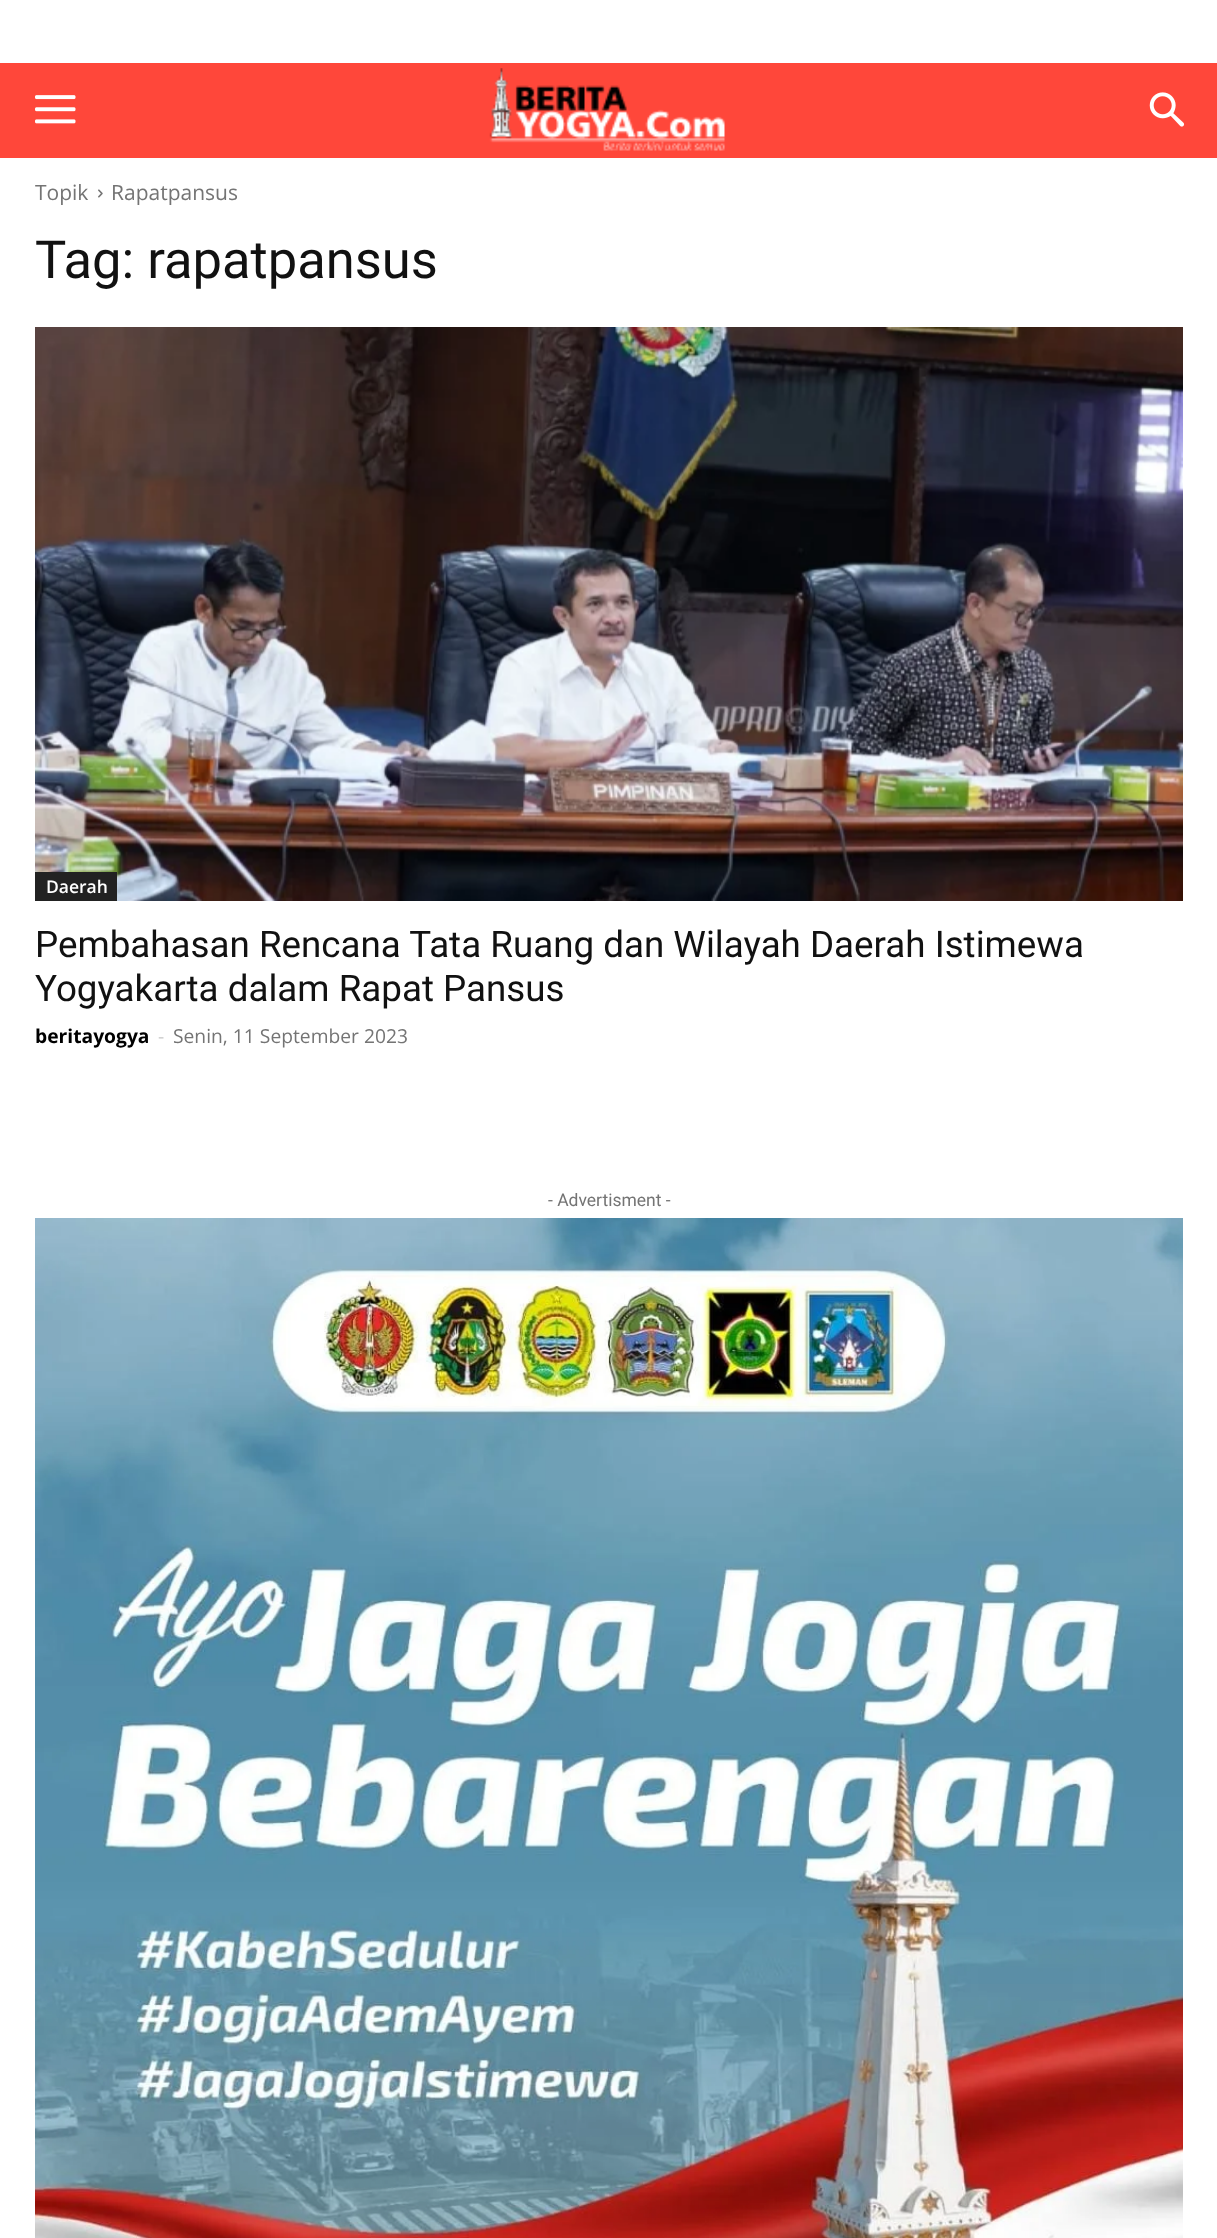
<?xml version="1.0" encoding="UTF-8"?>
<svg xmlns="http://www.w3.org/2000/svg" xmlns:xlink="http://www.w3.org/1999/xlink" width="1217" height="2238">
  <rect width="100%" height="100%" fill="#ffffff" />
  <rect y="63" width="1217" height="95" fill="#ff473a" />
  <image x="35" y="95" width="41" height="29" xlink:href="image1.png" />
  <image x="489" y="68" width="236" height="83" xlink:href="image2.png" />
  <image x="1149" y="92" width="36" height="35" xlink:href="image3.png" />
  <image x="98" y="189" width="5" height="9" xlink:href="image4.png" />
  <image x="35" y="327" width="1148" height="574" xlink:href="image5.png" />
  <rect x="35" y="872" width="82" height="29" fill="#222222" />
  <image x="35" y="1218" width="1148" height="1020" xlink:href="image6.png" />
  <text x="35" y="200" style="font-family: Open Sans; font-size: 21px; fill: #747474">Topik</text>
  <text x="111" y="200" style="font-family: Open Sans; font-size: 21px; fill: #747474">Rapatpansus</text>
  <text x="35" y="278" style="font-family: Roboto; font-size: 52.5px; fill: #111111">Tag: rapatpansus</text>
  <text x="46" y="893" style="font-family: Open Sans; font-size: 17.5px; font-weight: 600; fill: #ffffff">Daerah</text>
  <text x="35" y="957" style="font-family: Roboto; font-size: 36.75px; fill: #111111">Pembahasan Rencana Tata Ruang dan Wilayah Daerah Istimewa</text>
  <text x="35" y="1001" style="font-family: Roboto; font-size: 36.75px; fill: #111111">Yogyakarta dalam Rapat Pansus</text>
  <text x="35" y="1043" style="font-family: Open Sans; font-size: 19.25px; font-weight: bold; fill: #000000">beritayogya</text>
  <text x="158" y="1043" style="font-family: Open Sans; font-size: 19.25px; fill: #cccccc">-</text>
  <text x="173" y="1043" style="font-family: Open Sans; font-size: 19.25px; fill: #747474">Senin, 11 September 2023</text>
  <text x="548" y="1206" style="font-family: Roboto; font-size: 17.5px; fill: #747474">- Advertisment -</text>
</svg>
